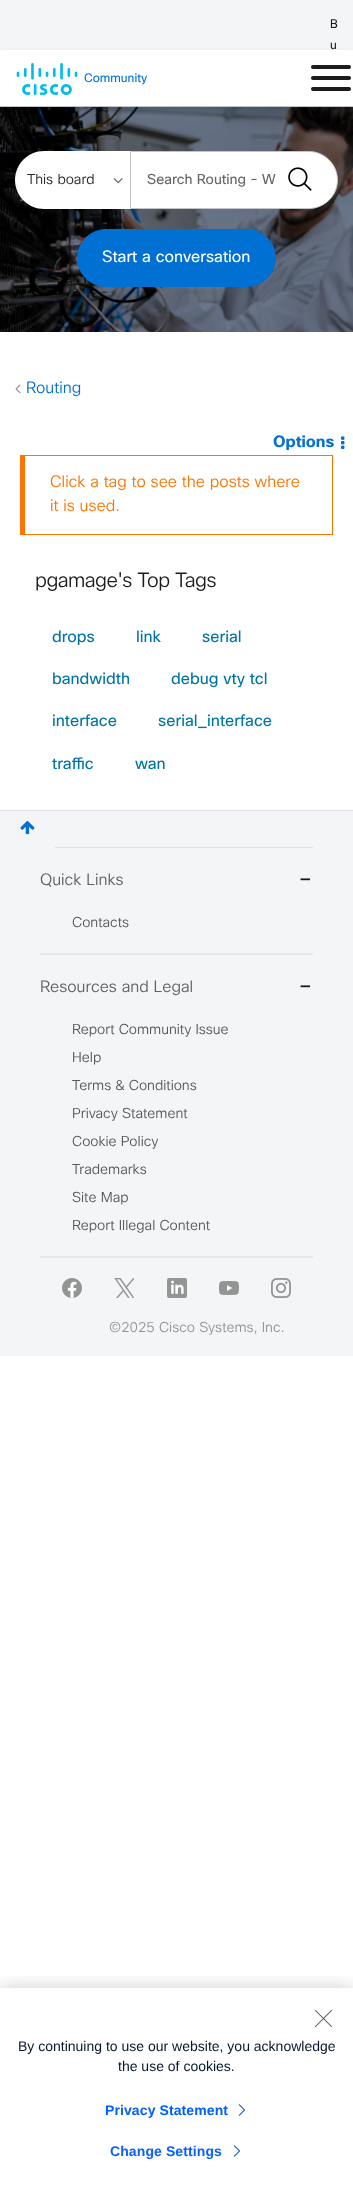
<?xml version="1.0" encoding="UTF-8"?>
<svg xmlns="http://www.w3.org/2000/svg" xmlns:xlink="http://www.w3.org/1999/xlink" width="353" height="2198">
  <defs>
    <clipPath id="clip1"><rect x="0" y="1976" width="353" height="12" /></clipPath>
  </defs>
  <rect width="100%" height="100%" fill="#ffffff" />
  <rect width="353" height="50" fill="#f4f5f6" />
  <image x="0" y="107" width="353" height="225" xlink:href="image2.png" />
  <rect y="52" width="353" height="57" fill="#000000" fill-opacity="0.12" filter="blur(2.5px)" />
  <rect y="50" width="353" height="56" fill="#ffffff" />
  <rect y="106" width="353" height="1" fill="#c3c4c5" />
  <image x="16" y="63" width="62" height="32" xlink:href="image1.png" />
  <rect x="311" y="65" width="40" height="4" rx="2" fill="#1b1c1d" />
  <rect x="311" y="76" width="40" height="4" rx="2" fill="#1b1c1d" />
  <rect x="311" y="87" width="40" height="4" rx="2" fill="#1b1c1d" />
  <path d="M 44 151 h 91 v 58 h -91 c -16 0 -29 -13 -29 -29 c 0 -16 13 -29 29 -29 z" fill="#ffffff" />
  <image x="113" y="178" width="10" height="6" xlink:href="image3.png" />
  <path d="M 130.5 151.5 h 178.5 c 15.5 0 28.5 13 28.5 28.5 c 0 15.5 -13 28.5 -28.5 28.5 h -178.5 z" fill="#ffffff" stroke="#c3c4c5" />
  <image x="288" y="167" width="24" height="24" xlink:href="image4.png" />
  <rect x="77.5" y="229.5" width="198" height="57" rx="28.5" fill="#0070d2" stroke="#0070d2" />
  <image x="15" y="384" width="6" height="10" xlink:href="image5.png" />
  <image x="341" y="436" width="4" height="13" xlink:href="image6.png" />
  <rect x="20" y="455" width="313" height="1" fill="#ff7300" />
  <rect x="332" y="455" width="1" height="80" fill="#ff7300" />
  <rect x="20" y="534" width="313" height="1" fill="#ff7300" />
  <rect x="20" y="455" width="5" height="80" fill="#ff7300" />
  <rect y="811" width="353" height="545" fill="#f4f5f6" />
  <image x="20" y="821" width="15" height="14" xlink:href="image7.png" />
  <rect y="810" width="353" height="1" fill="#dee2e6" />
  <rect x="55" y="847" width="258" height="1" fill="#dee2e6" />
  <rect x="40" y="953" width="273" height="2" fill="#e6e7e8" />
  <rect x="40" y="1256" width="273" height="2" fill="#e6e7e8" />
  <image x="62" y="1278" width="20" height="20" xlink:href="image8.png" />
  <image x="114" y="1278" width="20" height="20" xlink:href="image9.png" />
  <image x="167" y="1278" width="20" height="20" xlink:href="image10.png" />
  <image x="219" y="1281" width="20" height="14" xlink:href="image11.png" />
  <image x="271" y="1278" width="20" height="20" xlink:href="image12.png" />
  <g clip-path="url(#clip1)">
    <rect y="1988" width="353" height="210" fill="#000000" fill-opacity="0.2" filter="blur(9px)" />
  </g>
  <image x="314" y="2009" width="19" height="19" xlink:href="image13.png" />
  <image x="238" y="2104" width="7" height="12" xlink:href="image14.png" />
  <image x="233" y="2145" width="7" height="12" xlink:href="image14.png" />
  <text x="330" y="28" style="font-family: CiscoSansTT; font-size: 12px; fill: #1b1c1d">B</text>
  <text x="330" y="49" style="font-family: CiscoSansTT; font-size: 12px; fill: #1b1c1d">u</text>
  <text x="84" y="82" style="font-family: CiscoSansTT; font-size: 12px; fill: #0070d2">Community</text>
  <text x="27" y="184" style="font-family: CiscoSansTT; font-size: 14px; font-weight: 300; fill: #212529">This board</text>
  <text x="147" y="184" style="font-family: CiscoSansTT; font-size: 14px; fill: #666666">Search Routing - W</text>
  <text x="102" y="262" style="font-family: CiscoSansTT; font-size: 16px; fill: #ffffff">Start a conversation</text>
  <text x="26" y="393" style="font-family: CiscoSansTT; font-size: 16px; font-weight: 300; fill: #0070d2">Routing</text>
  <text x="273" y="447" style="font-family: CiscoSansTT; font-size: 16px; font-weight: bold; fill: #0070d2">Options</text>
  <text x="50" y="487" style="font-family: CiscoSansTT; font-size: 16px; font-weight: 300; fill: #ff7300">Click a tag to see the posts where</text>
  <text x="50" y="511" style="font-family: CiscoSansTT; font-size: 16px; font-weight: 300; fill: #ff7300">it is used.</text>
  <text x="35" y="587" style="font-family: CiscoSansTT; font-size: 20px; font-weight: 300; letter-spacing: -0.5px; fill: #1b1c1d">pgamage's Top Tags</text>
  <text x="52" y="642" style="font-family: CiscoSansTT; font-size: 16px; fill: #0175a2">drops</text>
  <text x="136" y="642" style="font-family: CiscoSansTT; font-size: 16px; fill: #0175a2">link</text>
  <text x="202" y="642" style="font-family: CiscoSansTT; font-size: 16px; fill: #0175a2">serial</text>
  <text x="52" y="684" style="font-family: CiscoSansTT; font-size: 16px; fill: #0175a2">bandwidth</text>
  <text x="171" y="684" style="font-family: CiscoSansTT; font-size: 16px; fill: #0175a2">debug vty tcl</text>
  <text x="52" y="726" style="font-family: CiscoSansTT; font-size: 16px; fill: #0175a2">interface</text>
  <text x="158" y="726" style="font-family: CiscoSansTT; font-size: 16px; fill: #0175a2">serial_interface</text>
  <text x="52" y="769" style="font-family: CiscoSansTT; font-size: 16px; fill: #0175a2">traffic</text>
  <text x="135" y="769" style="font-family: CiscoSansTT; font-size: 16px; fill: #0175a2">wan</text>
  <text x="40" y="885" style="font-family: CiscoSansTT; font-size: 16px; font-weight: 300; fill: #606162">Quick Links</text>
  <text x="298" y="888" style="font-family: CiscoSansTT; font-size: 27px; font-weight: 300; fill: #1b1c1d">-</text>
  <text x="72" y="927" style="font-family: CiscoSansTT; font-size: 14px; font-weight: 300; fill: #58585b">Contacts</text>
  <text x="40" y="992" style="font-family: CiscoSansTT; font-size: 16px; font-weight: 300; fill: #606162">Resources and Legal</text>
  <text x="298" y="995" style="font-family: CiscoSansTT; font-size: 27px; font-weight: 300; fill: #1b1c1d">-</text>
  <text x="72" y="1034" style="font-family: CiscoSansTT; font-size: 14px; font-weight: 300; fill: #58585b">Report Community Issue</text>
  <text x="72" y="1062" style="font-family: CiscoSansTT; font-size: 14px; font-weight: 300; fill: #58585b">Help</text>
  <text x="72" y="1090" style="font-family: CiscoSansTT; font-size: 14px; font-weight: 300; fill: #58585b">Terms &amp; Conditions</text>
  <text x="72" y="1118" style="font-family: CiscoSansTT; font-size: 14px; font-weight: 300; fill: #58585b">Privacy Statement</text>
  <text x="72" y="1146" style="font-family: CiscoSansTT; font-size: 14px; font-weight: 300; fill: #58585b">Cookie Policy</text>
  <text x="72" y="1174" style="font-family: CiscoSansTT; font-size: 14px; font-weight: 300; fill: #58585b">Trademarks</text>
  <text x="72" y="1202" style="font-family: CiscoSansTT; font-size: 14px; font-weight: 300; fill: #58585b">Site Map</text>
  <text x="72" y="1230" style="font-family: CiscoSansTT; font-size: 14px; font-weight: 300; fill: #58585b">Report Illegal Content</text>
  <text x="109" y="1332" style="font-family: CiscoSansTT; font-size: 14px; font-weight: 300; fill: #939595">©2025 Cisco Systems, Inc.</text>
  <text x="18" y="2051" style="font-family: Liberation Sans; font-size: 14px; fill: #07182d">By continuing to use our website, you acknowledge</text>
  <text x="118" y="2071" style="font-family: Liberation Sans; font-size: 14px; fill: #07182d">the use of cookies.</text>
  <text x="105" y="2115" style="font-family: Liberation Sans; font-size: 14px; font-weight: bold; letter-spacing: 0.1px; fill: #0060ff">Privacy Statement</text>
  <text x="110" y="2156" style="font-family: Liberation Sans; font-size: 14px; font-weight: bold; letter-spacing: 0.1px; fill: #0a60ff">Change Settings</text>
</svg>
